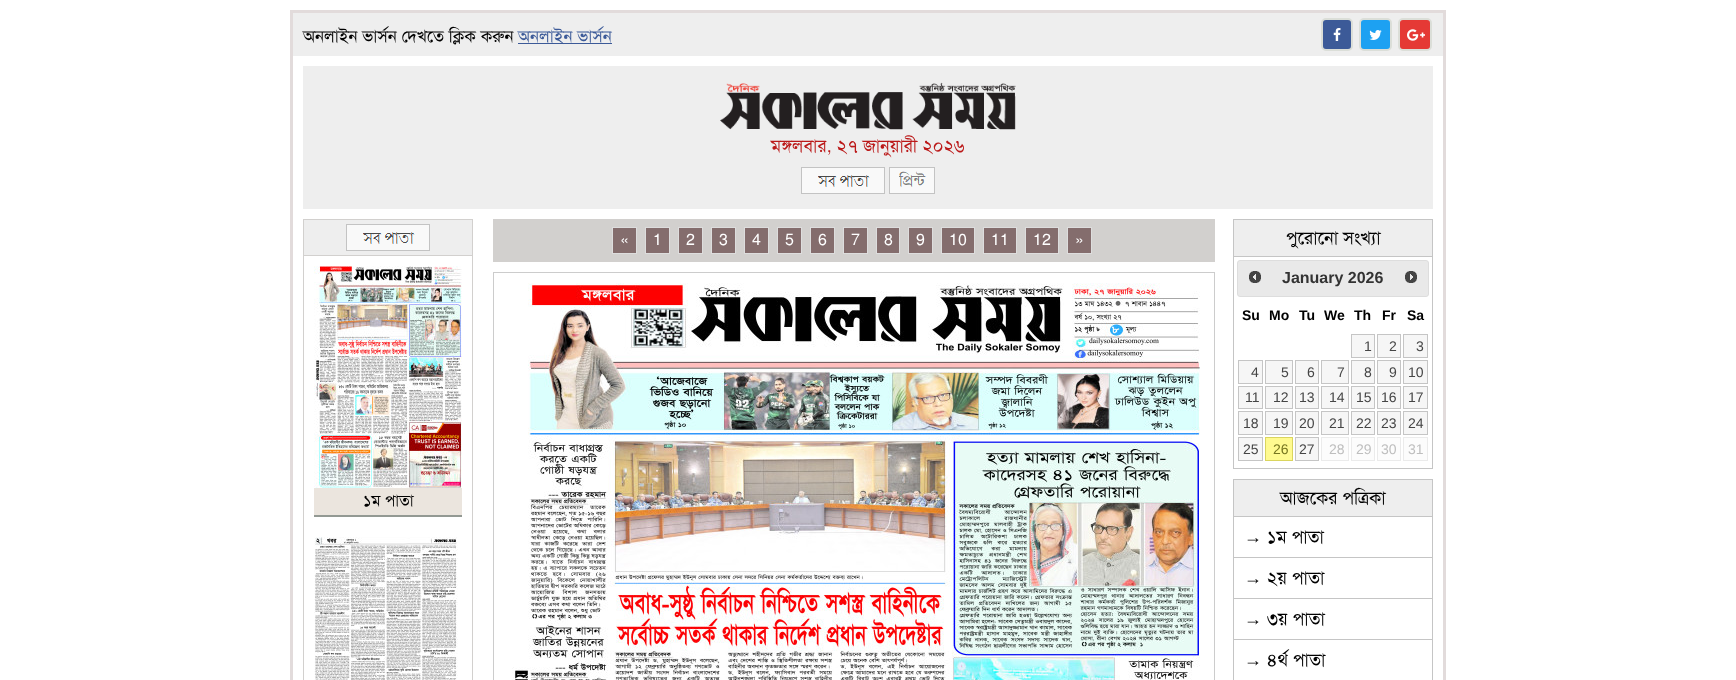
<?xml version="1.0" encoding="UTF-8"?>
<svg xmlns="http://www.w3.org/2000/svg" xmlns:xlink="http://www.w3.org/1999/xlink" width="1736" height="680">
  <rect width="100%" height="100%" fill="#ffffff" />
  <rect x="291.5" y="11.5" width="1153" height="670" fill="none" stroke="#e2dbdb" stroke-width="3" />
  <rect x="293" y="13" width="1150" height="43" fill="#eeeeee" />
  <rect x="518" y="43" width="94" height="1" fill="#3c5a98" />
  <rect x="1322" y="19" width="30" height="31" rx="4" fill="#3c5a98" stroke="#dbded8" stroke-width="2" />
  <image x="1333" y="28" width="8" height="13" xlink:href="image1.png" />
  <rect x="1360" y="19" width="31" height="31" rx="4" fill="#1da1f2" stroke="#dbded8" stroke-width="2" />
  <image x="1369" y="30" width="13" height="10" xlink:href="image2.png" />
  <rect x="1399" y="19" width="32" height="31" rx="4" fill="#e53935" stroke="#dbded8" stroke-width="2" />
  <image x="1407" y="29" width="18" height="12" xlink:href="image3.png" />
  <rect x="303" y="66" width="1130" height="143" fill="#eeeeee" />
  <image x="720" y="82" width="296" height="48" xlink:href="image4.png" />
  <image x="801" y="167" width="84" height="27" xlink:href="image5.png" />
  <image x="889" y="167" width="46" height="27" xlink:href="image6.png" />
  <rect x="493" y="219" width="722" height="43" fill="#d2d0ce" />
  <rect x="612.5" y="227.5" width="24" height="26" fill="#846d6d" stroke="#dddddd" />
  <rect x="645.5" y="227.5" width="24" height="26" fill="#846d6d" stroke="#dddddd" />
  <rect x="678.5" y="227.5" width="24" height="26" fill="#846d6d" stroke="#dddddd" />
  <rect x="711.5" y="227.5" width="24" height="26" fill="#846d6d" stroke="#dddddd" />
  <rect x="744.5" y="227.5" width="24" height="26" fill="#846d6d" stroke="#dddddd" />
  <rect x="777.5" y="227.5" width="24" height="26" fill="#846d6d" stroke="#dddddd" />
  <rect x="810.5" y="227.5" width="24" height="26" fill="#846d6d" stroke="#dddddd" />
  <rect x="843.5" y="227.5" width="24" height="26" fill="#846d6d" stroke="#dddddd" />
  <rect x="876.5" y="227.5" width="23" height="26" fill="#846d6d" stroke="#dddddd" />
  <rect x="908.5" y="227.5" width="24" height="26" fill="#846d6d" stroke="#dddddd" />
  <rect x="941.5" y="227.5" width="33" height="26" fill="#846d6d" stroke="#dddddd" />
  <rect x="983.5" y="227.5" width="33" height="26" fill="#846d6d" stroke="#dddddd" />
  <rect x="1025.5" y="227.5" width="33" height="26" fill="#846d6d" stroke="#dddddd" />
  <rect x="1067.5" y="227.5" width="24" height="26" fill="#846d6d" stroke="#dddddd" />
  <rect x="493.5" y="272.5" width="721" height="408" fill="none" stroke="#cccccc" />
  <image x="512" y="283" width="688" height="397" xlink:href="image7.png" />
  <rect x="1234" y="220" width="198" height="36" fill="#eeeeee" />
  <rect x="1233" y="219" width="200" height="1" fill="#c5c5c5" />
  <rect x="1432" y="219" width="1" height="37" fill="#c5c5c5" />
  <rect x="1233" y="219" width="1" height="37" fill="#c5c5c5" />
  <rect x="1233.5" y="256.5" width="199" height="212" fill="none" stroke="#c5c5c5" />
  <rect x="1237.5" y="260.5" width="191" height="36" rx="2.5" fill="#e9e9e9" stroke="#dddddd" />
  <image x="1249" y="271" width="12" height="12" xlink:href="image8.png" />
  <image x="1405" y="271" width="12" height="12" xlink:href="image9.png" />
  <rect x="1351.5" y="334.5" width="23" height="23" fill="#f6f6f6" stroke="#c5c5c5" />
  <rect x="1377.5" y="334.5" width="23" height="23" fill="#f6f6f6" stroke="#c5c5c5" />
  <rect x="1403.5" y="334.5" width="24" height="23" fill="#f6f6f6" stroke="#c5c5c5" />
  <rect x="1238.5" y="360.5" width="24" height="23" fill="#f6f6f6" stroke="#c5c5c5" />
  <rect x="1265.5" y="360.5" width="27" height="23" fill="#f6f6f6" stroke="#c5c5c5" />
  <rect x="1295.5" y="360.5" width="23" height="23" fill="#f6f6f6" stroke="#c5c5c5" />
  <rect x="1321.5" y="360.5" width="27" height="23" fill="#f6f6f6" stroke="#c5c5c5" />
  <rect x="1351.5" y="360.5" width="23" height="23" fill="#f6f6f6" stroke="#c5c5c5" />
  <rect x="1377.5" y="360.5" width="23" height="23" fill="#f6f6f6" stroke="#c5c5c5" />
  <rect x="1403.5" y="360.5" width="24" height="23" fill="#f6f6f6" stroke="#c5c5c5" />
  <rect x="1238.5" y="386.5" width="24" height="22" fill="#f6f6f6" stroke="#c5c5c5" />
  <rect x="1265.5" y="386.5" width="27" height="22" fill="#f6f6f6" stroke="#c5c5c5" />
  <rect x="1295.5" y="386.5" width="23" height="22" fill="#f6f6f6" stroke="#c5c5c5" />
  <rect x="1321.5" y="386.5" width="27" height="22" fill="#f6f6f6" stroke="#c5c5c5" />
  <rect x="1351.5" y="386.5" width="23" height="22" fill="#f6f6f6" stroke="#c5c5c5" />
  <rect x="1377.5" y="386.5" width="23" height="22" fill="#f6f6f6" stroke="#c5c5c5" />
  <rect x="1403.5" y="386.5" width="24" height="22" fill="#f6f6f6" stroke="#c5c5c5" />
  <rect x="1238.5" y="411.5" width="24" height="23" fill="#f6f6f6" stroke="#c5c5c5" />
  <rect x="1265.5" y="411.5" width="27" height="23" fill="#f6f6f6" stroke="#c5c5c5" />
  <rect x="1295.5" y="411.5" width="23" height="23" fill="#f6f6f6" stroke="#c5c5c5" />
  <rect x="1321.5" y="411.5" width="27" height="23" fill="#f6f6f6" stroke="#c5c5c5" />
  <rect x="1351.5" y="411.5" width="23" height="23" fill="#f6f6f6" stroke="#c5c5c5" />
  <rect x="1377.5" y="411.5" width="23" height="23" fill="#f6f6f6" stroke="#c5c5c5" />
  <rect x="1403.5" y="411.5" width="24" height="23" fill="#f6f6f6" stroke="#c5c5c5" />
  <rect x="1238.5" y="437.5" width="24" height="23" fill="#f6f6f6" stroke="#c5c5c5" />
  <rect x="1265.5" y="437.5" width="27" height="23" fill="#fffa90" stroke="#dad55e" />
  <rect x="1295.5" y="437.5" width="23" height="23" fill="#f6f6f6" stroke="#c5c5c5" />
  <rect x="1321.5" y="437.5" width="27" height="23" fill="#fcfcfc" stroke="#ebebeb" />
  <rect x="1351.5" y="437.5" width="23" height="23" fill="#fcfcfc" stroke="#ebebeb" />
  <rect x="1377.5" y="437.5" width="23" height="23" fill="#fcfcfc" stroke="#ebebeb" />
  <rect x="1403.5" y="437.5" width="24" height="23" fill="#fcfcfc" stroke="#ebebeb" />
  <rect x="1234" y="480" width="198" height="36" fill="#eeeeee" />
  <rect x="1233" y="479" width="200" height="1" fill="#c5c5c5" />
  <rect x="1432" y="479" width="1" height="37" fill="#c5c5c5" />
  <rect x="1233" y="479" width="1" height="37" fill="#c5c5c5" />
  <rect x="1233.5" y="516.5" width="199" height="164" fill="none" stroke="#c5c5c5" />
  <rect x="1234" y="557" width="198" height="1" fill="#c5c5c5" />
  <rect x="1234" y="598" width="198" height="1" fill="#c5c5c5" />
  <rect x="1234" y="639" width="198" height="1" fill="#c5c5c5" />
  <rect x="304" y="220" width="168" height="35" fill="#eeeeee" />
  <rect x="303" y="219" width="170" height="1" fill="#d2d0ce" />
  <rect x="472" y="219" width="1" height="36" fill="#d2d0ce" />
  <rect x="303" y="219" width="1" height="36" fill="#d2d0ce" />
  <image x="346" y="224" width="84" height="27" xlink:href="image5.png" />
  <rect x="303.5" y="255.5" width="169" height="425" fill="none" stroke="#d2d0ce" />
  <image x="314" y="266" width="148" height="222" xlink:href="image10.png" />
  <rect x="314" y="488" width="148" height="27" fill="#ebe5de" />
  <rect x="314" y="515" width="148" height="2" fill="#939993" />
  <image x="314" y="537" width="144" height="143" xlink:href="image11.png" />
  <text x="303" y="42" style="font-family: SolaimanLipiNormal; font-size: 17px; fill: #000000">অনলাইন ভার্সন দেখতে ক্লিক করুন</text>
  <text x="518" y="42" style="font-family: SolaimanLipiNormal; font-size: 17px; fill: #3c5a98">অনলাইন ভার্সন</text>
  <text x="771" y="152" style="font-family: SolaimanLipiNormal; font-size: 18px; fill: #bb1919">মঙ্গলবার, ২৭ জানুয়ারী ২০২৬</text>
  <text x="620" y="245" style="font-family: SolaimanLipiNormal; font-size: 16px; fill: #ffffff">«</text>
  <text x="653" y="245" style="font-family: SolaimanLipiNormal; font-size: 16px; fill: #ffffff">1</text>
  <text x="686" y="245" style="font-family: SolaimanLipiNormal; font-size: 16px; fill: #ffffff">2</text>
  <text x="719" y="245" style="font-family: SolaimanLipiNormal; font-size: 16px; fill: #ffffff">3</text>
  <text x="752" y="245" style="font-family: SolaimanLipiNormal; font-size: 16px; fill: #ffffff">4</text>
  <text x="785" y="245" style="font-family: SolaimanLipiNormal; font-size: 16px; fill: #ffffff">5</text>
  <text x="818" y="245" style="font-family: SolaimanLipiNormal; font-size: 16px; fill: #ffffff">6</text>
  <text x="851" y="245" style="font-family: SolaimanLipiNormal; font-size: 16px; fill: #ffffff">7</text>
  <text x="884" y="245" style="font-family: SolaimanLipiNormal; font-size: 16px; fill: #ffffff">8</text>
  <text x="916" y="245" style="font-family: SolaimanLipiNormal; font-size: 16px; fill: #ffffff">9</text>
  <text x="949" y="245" style="font-family: SolaimanLipiNormal; font-size: 16px; fill: #ffffff">10</text>
  <text x="991" y="245" style="font-family: SolaimanLipiNormal; font-size: 16px; fill: #ffffff">11</text>
  <text x="1033" y="245" style="font-family: SolaimanLipiNormal; font-size: 16px; fill: #ffffff">12</text>
  <text x="1075" y="245" style="font-family: SolaimanLipiNormal; font-size: 16px; fill: #ffffff">»</text>
  <text x="1286" y="244" style="font-family: SolaimanLipiNormal; font-size: 18px; fill: #000000">পুরোনো সংখ্যা</text>
  <text x="1282" y="283" style="font-family: Liberation Sans; font-size: 16px; font-weight: bold; fill: #333333">January 2026</text>
  <text x="1242" y="320" style="font-family: Liberation Sans; font-size: 14px; font-weight: bold; fill: #000000">Su</text>
  <text x="1269" y="320" style="font-family: Liberation Sans; font-size: 14px; font-weight: bold; fill: #000000">Mo</text>
  <text x="1299" y="320" style="font-family: Liberation Sans; font-size: 14px; font-weight: bold; fill: #000000">Tu</text>
  <text x="1324" y="320" style="font-family: Liberation Sans; font-size: 14px; font-weight: bold; fill: #000000">We</text>
  <text x="1354" y="320" style="font-family: Liberation Sans; font-size: 14px; font-weight: bold; fill: #000000">Th</text>
  <text x="1382" y="320" style="font-family: Liberation Sans; font-size: 14px; font-weight: bold; fill: #000000">Fr</text>
  <text x="1407" y="320" style="font-family: Liberation Sans; font-size: 14px; font-weight: bold; fill: #000000">Sa</text>
  <text x="1364" y="351" style="font-family: Liberation Sans; font-size: 14px; fill: #454545">1</text>
  <text x="1389" y="351" style="font-family: Liberation Sans; font-size: 14px; fill: #454545">2</text>
  <text x="1416" y="351" style="font-family: Liberation Sans; font-size: 14px; fill: #454545">3</text>
  <text x="1251" y="377" style="font-family: Liberation Sans; font-size: 14px; fill: #454545">4</text>
  <text x="1281" y="377" style="font-family: Liberation Sans; font-size: 14px; fill: #454545">5</text>
  <text x="1307" y="377" style="font-family: Liberation Sans; font-size: 14px; fill: #454545">6</text>
  <text x="1337" y="377" style="font-family: Liberation Sans; font-size: 14px; fill: #454545">7</text>
  <text x="1364" y="377" style="font-family: Liberation Sans; font-size: 14px; fill: #454545">8</text>
  <text x="1389" y="377" style="font-family: Liberation Sans; font-size: 14px; fill: #454545">9</text>
  <text x="1408" y="377" style="font-family: Liberation Sans; font-size: 14px; fill: #454545">10</text>
  <text x="1245" y="402" style="font-family: Liberation Sans; font-size: 14px; fill: #454545">11</text>
  <text x="1273" y="402" style="font-family: Liberation Sans; font-size: 14px; fill: #454545">12</text>
  <text x="1299" y="402" style="font-family: Liberation Sans; font-size: 14px; fill: #454545">13</text>
  <text x="1329" y="402" style="font-family: Liberation Sans; font-size: 14px; fill: #454545">14</text>
  <text x="1356" y="402" style="font-family: Liberation Sans; font-size: 14px; fill: #454545">15</text>
  <text x="1381" y="402" style="font-family: Liberation Sans; font-size: 14px; fill: #454545">16</text>
  <text x="1408" y="402" style="font-family: Liberation Sans; font-size: 14px; fill: #454545">17</text>
  <text x="1243" y="428" style="font-family: Liberation Sans; font-size: 14px; fill: #454545">18</text>
  <text x="1273" y="428" style="font-family: Liberation Sans; font-size: 14px; fill: #454545">19</text>
  <text x="1299" y="428" style="font-family: Liberation Sans; font-size: 14px; fill: #454545">20</text>
  <text x="1329" y="428" style="font-family: Liberation Sans; font-size: 14px; fill: #454545">21</text>
  <text x="1356" y="428" style="font-family: Liberation Sans; font-size: 14px; fill: #454545">22</text>
  <text x="1381" y="428" style="font-family: Liberation Sans; font-size: 14px; fill: #454545">23</text>
  <text x="1408" y="428" style="font-family: Liberation Sans; font-size: 14px; fill: #454545">24</text>
  <text x="1243" y="454" style="font-family: Liberation Sans; font-size: 14px; fill: #454545">25</text>
  <text x="1273" y="454" style="font-family: Liberation Sans; font-size: 14px; fill: #777620">26</text>
  <text x="1299" y="454" style="font-family: Liberation Sans; font-size: 14px; fill: #454545">27</text>
  <text x="1329" y="454" style="font-family: Liberation Sans; font-size: 14px; fill: #bebebe">28</text>
  <text x="1356" y="454" style="font-family: Liberation Sans; font-size: 14px; fill: #bebebe">29</text>
  <text x="1381" y="454" style="font-family: Liberation Sans; font-size: 14px; fill: #bebebe">30</text>
  <text x="1408" y="454" style="font-family: Liberation Sans; font-size: 14px; fill: #bebebe">31</text>
  <text x="1280" y="504" style="font-family: SolaimanLipiNormal; font-size: 18px; fill: #000000">আজকের পত্রিকা</text>
  <text x="1244" y="543" style="font-family: Liberation Serif; font-size: 18px; fill: #000000">→</text>
  <text x="1267" y="543" style="font-family: SolaimanLipiNormal; font-size: 18px; fill: #000000">১ম পাতা</text>
  <text x="1244" y="584" style="font-family: Liberation Serif; font-size: 18px; fill: #000000">→</text>
  <text x="1267" y="584" style="font-family: SolaimanLipiNormal; font-size: 18px; fill: #000000">২য় পাতা</text>
  <text x="1244" y="625" style="font-family: Liberation Serif; font-size: 18px; fill: #000000">→</text>
  <text x="1267" y="625" style="font-family: SolaimanLipiNormal; font-size: 18px; fill: #000000">৩য় পাতা</text>
  <text x="1244" y="666" style="font-family: Liberation Serif; font-size: 18px; fill: #000000">→</text>
  <text x="1267" y="666" style="font-family: SolaimanLipiNormal; font-size: 18px; fill: #000000">৪র্থ পাতা</text>
  <text x="363" y="506" style="font-family: SolaimanLipiNormal; font-size: 16px; fill: #000000">১ম পাতা</text>
</svg>
